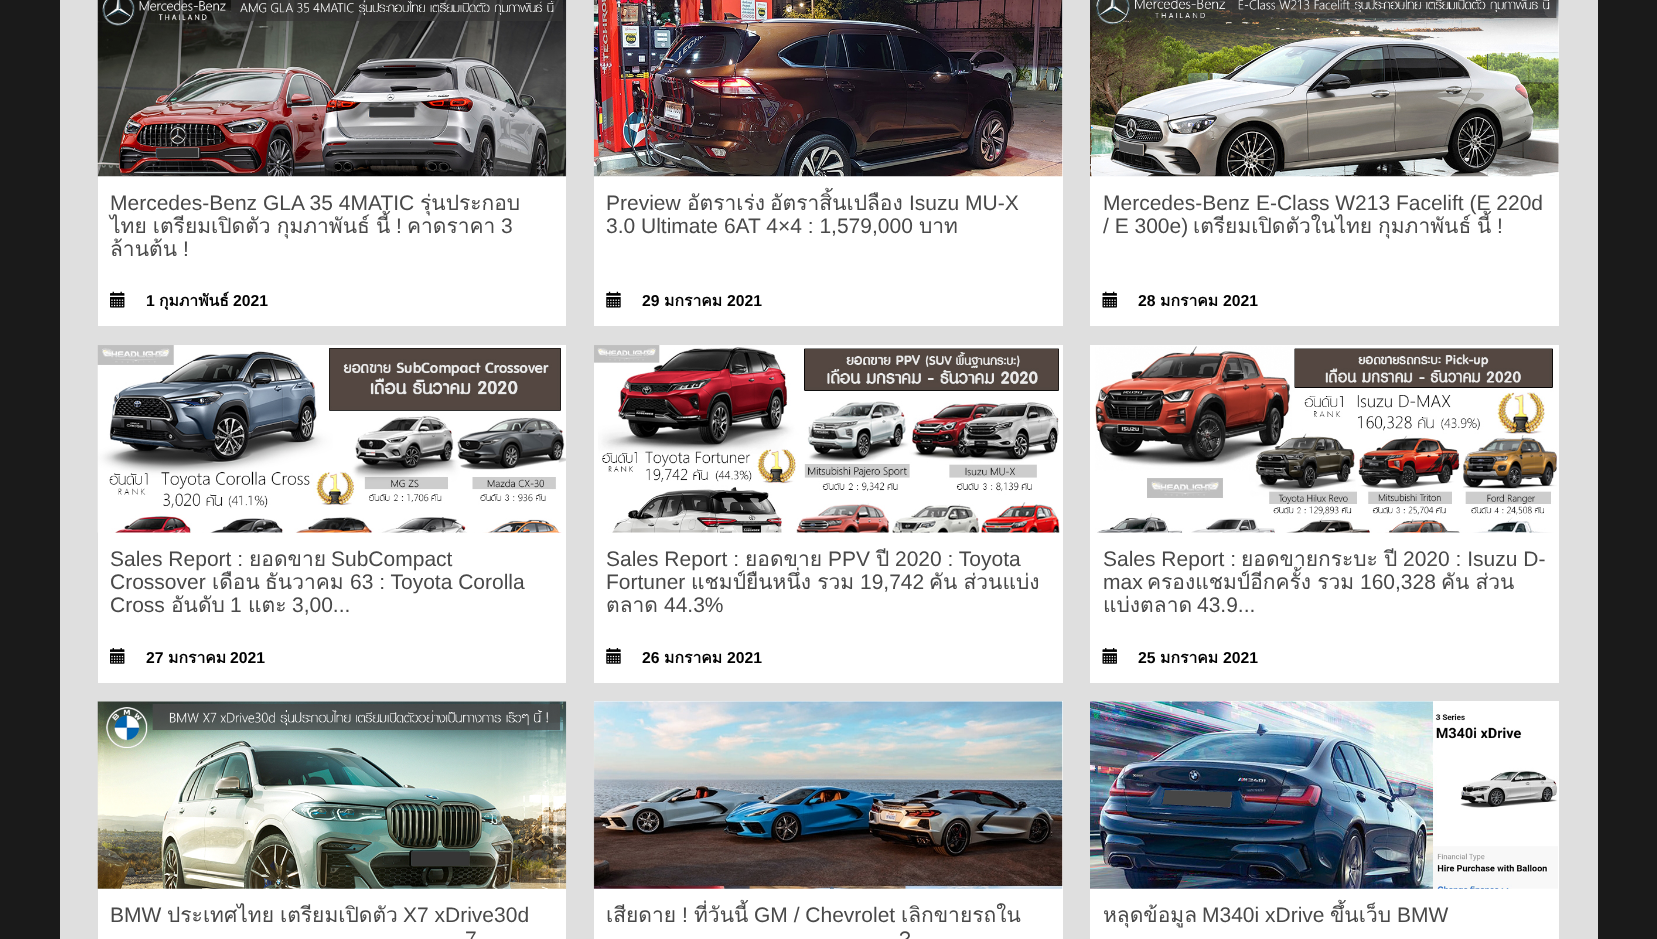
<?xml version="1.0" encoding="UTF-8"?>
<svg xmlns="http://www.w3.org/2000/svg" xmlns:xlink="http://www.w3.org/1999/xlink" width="1657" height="939">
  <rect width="100%" height="100%" fill="#1a1a1a" />
  <rect x="60" width="1538" height="939" fill="#dfdfdf" />
  <rect x="98" y="176" width="468" height="150" fill="#ffffff" />
  <image x="97" y="0" width="470" height="177" xlink:href="image1.png" />
  <image x="110" y="291" width="15" height="17" xlink:href="image2.png" />
  <rect x="594" width="469" height="326" fill="#ffffff" />
  <image x="593" y="0" width="470" height="177" xlink:href="image3.png" />
  <image x="606" y="291" width="15" height="17" xlink:href="image4.png" />
  <rect x="1090" width="469" height="326" fill="#ffffff" />
  <image x="1090" y="0" width="469" height="177" xlink:href="image5.png" />
  <image x="1102" y="291" width="15" height="17" xlink:href="image6.png" />
  <rect x="98" y="532" width="468" height="151" fill="#ffffff" />
  <image x="97" y="345" width="469" height="188" xlink:href="image7.png" />
  <image x="110" y="648" width="15" height="16" xlink:href="image8.png" />
  <rect x="594" y="345" width="469" height="338" fill="#ffffff" />
  <image x="594" y="345" width="466" height="188" xlink:href="image9.png" />
  <image x="606" y="648" width="15" height="16" xlink:href="image10.png" />
  <rect x="1090" y="345" width="469" height="338" fill="#ffffff" />
  <image x="1095" y="346" width="462" height="187" xlink:href="image11.png" />
  <image x="1102" y="648" width="15" height="16" xlink:href="image12.png" />
  <rect x="98" y="701" width="468" height="238" fill="#ffffff" />
  <image x="97" y="701" width="470" height="188" xlink:href="image13.png" />
  <rect x="594" y="701" width="469" height="238" fill="#ffffff" />
  <image x="593" y="701" width="470" height="188" xlink:href="image14.png" />
  <rect x="1090" y="701" width="469" height="238" fill="#ffffff" />
  <image x="1090" y="701" width="468" height="188" xlink:href="image15.png" />
  <text x="110" y="210" style="font-family: Liberation Sans; font-size: 21px; fill: #494949">Mercedes-Benz GLA 35 4MATIC</text>
  <text x="420" y="210" style="font-family: Loma; font-size: 21px; fill: #494949">รุ่นประกอบ</text>
  <text x="110" y="233" word-spacing="-1" style="font-family: Loma; font-size: 21px; fill: #494949">ไทย เตรียมเปิดตัว กุมภาพันธ์ นี้</text>
  <text x="396" y="233" style="font-family: Liberation Sans; font-size: 21px; fill: #494949">!</text>
  <text x="407" y="233" style="font-family: Loma; font-size: 21px; fill: #494949">คาดราคา</text>
  <text x="501" y="233" style="font-family: Liberation Sans; font-size: 21px; fill: #494949">3</text>
  <text x="110" y="256" style="font-family: Loma; font-size: 21px; fill: #494949">ล้านต้น</text>
  <text x="183" y="256" style="font-family: Liberation Sans; font-size: 21px; fill: #494949">!</text>
  <text x="146" y="306" style="font-family: Liberation Sans; font-size: 15.75px; font-weight: bold; fill: #000000">1</text>
  <text x="159" y="306" style="font-family: Loma; font-size: 15.75px; font-weight: bold; fill: #000000">กุมภาพันธ์</text>
  <text x="233" y="306" style="font-family: Liberation Sans; font-size: 15.75px; font-weight: bold; fill: #000000">2021</text>
  <text x="606" y="210" style="font-family: Liberation Sans; font-size: 21px; fill: #494949">Preview</text>
  <text x="687" y="210" style="font-family: Loma; font-size: 21px; fill: #494949">อัตราเร่ง</text>
  <text x="770" y="210" style="font-family: Loma; font-size: 21px; fill: #494949">อัตราสิ้นเปลือง</text>
  <text x="909" y="210" style="font-family: Liberation Sans; font-size: 21px; fill: #494949">Isuzu MU-X</text>
  <text x="606" y="233" style="font-family: Liberation Sans; font-size: 21px; fill: #494949">3.0 Ultimate 6AT 4×4 : 1,579,000</text>
  <text x="919" y="233" style="font-family: Loma; font-size: 21px; fill: #494949">บาท</text>
  <text x="642" y="306" style="font-family: Liberation Sans; font-size: 15.75px; font-weight: bold; fill: #000000">29</text>
  <text x="664" y="306" style="font-family: Loma; font-size: 15.75px; font-weight: bold; fill: #000000">มกราคม</text>
  <text x="727" y="306" style="font-family: Liberation Sans; font-size: 15.75px; font-weight: bold; fill: #000000">2021</text>
  <text x="1103" y="210" style="font-family: Liberation Sans; font-size: 21px; fill: #494949">Mercedes-Benz E-Class W213 Facelift (E 220d</text>
  <text x="1103" y="233" style="font-family: Liberation Sans; font-size: 21px; fill: #494949">/ E 300e)</text>
  <text x="1193" y="233" style="font-family: Loma; font-size: 21px; fill: #494949">เตรียมเปิดตัวในไทย</text>
  <text x="1378" y="233" style="font-family: Loma; font-size: 21px; fill: #494949">กุมภาพันธ์</text>
  <text x="1477" y="233" style="font-family: Loma; font-size: 21px; fill: #494949">นี้</text>
  <text x="1497" y="233" style="font-family: Liberation Sans; font-size: 21px; fill: #494949">!</text>
  <text x="1138" y="306" style="font-family: Liberation Sans; font-size: 15.75px; font-weight: bold; fill: #000000">28</text>
  <text x="1160" y="306" style="font-family: Loma; font-size: 15.75px; font-weight: bold; fill: #000000">มกราคม</text>
  <text x="1223" y="306" style="font-family: Liberation Sans; font-size: 15.75px; font-weight: bold; fill: #000000">2021</text>
  <text x="110" y="566" style="font-family: Liberation Sans; font-size: 21px; fill: #494949">Sales Report :</text>
  <text x="249" y="566" style="font-family: Loma; font-size: 21px; fill: #494949">ยอดขาย</text>
  <text x="331" y="566" style="font-family: Liberation Sans; font-size: 21px; fill: #494949">SubCompact</text>
  <text x="110" y="589" style="font-family: Liberation Sans; font-size: 21px; fill: #494949">Crossover</text>
  <text x="212" y="589" style="font-family: Loma; font-size: 21px; fill: #494949">เดือน</text>
  <text x="265" y="589" style="font-family: Loma; font-size: 21px; fill: #494949">ธันวาคม</text>
  <text x="350" y="589" style="font-family: Liberation Sans; font-size: 21px; fill: #494949">63 : Toyota Corolla</text>
  <text x="110" y="612" style="font-family: Liberation Sans; font-size: 21px; fill: #494949">Cross</text>
  <text x="171" y="612" style="font-family: Loma; font-size: 21px; fill: #494949">อันดับ</text>
  <text x="230" y="612" style="font-family: Liberation Sans; font-size: 21px; fill: #494949">1</text>
  <text x="248" y="612" style="font-family: Loma; font-size: 21px; fill: #494949">แตะ</text>
  <text x="292" y="612" style="font-family: Liberation Sans; font-size: 21px; fill: #494949">3,00...</text>
  <text x="146" y="663" style="font-family: Liberation Sans; font-size: 15.75px; font-weight: bold; fill: #000000">27</text>
  <text x="168" y="663" style="font-family: Loma; font-size: 15.75px; font-weight: bold; fill: #000000">มกราคม</text>
  <text x="230" y="663" style="font-family: Liberation Sans; font-size: 15.75px; font-weight: bold; fill: #000000">2021</text>
  <text x="606" y="566" style="font-family: Liberation Sans; font-size: 21px; fill: #494949">Sales Report :</text>
  <text x="745" y="566" style="font-family: Loma; font-size: 21px; fill: #494949">ยอดขาย</text>
  <text x="828" y="566" style="font-family: Liberation Sans; font-size: 21px; fill: #494949">PPV</text>
  <text x="876" y="566" style="font-family: Loma; font-size: 21px; fill: #494949">ปี</text>
  <text x="895" y="566" style="font-family: Liberation Sans; font-size: 21px; fill: #494949">2020 : Toyota</text>
  <text x="606" y="589" style="font-family: Liberation Sans; font-size: 21px; fill: #494949">Fortuner</text>
  <text x="691" y="589" word-spacing="-1" style="font-family: Loma; font-size: 21px; fill: #494949">แชมป์ยืนหนึ่ง รวม</text>
  <text x="860" y="589" style="font-family: Liberation Sans; font-size: 21px; fill: #494949">19,742</text>
  <text x="929" y="589" word-spacing="-1" style="font-family: Loma; font-size: 21px; fill: #494949">คัน ส่วนแบ่ง</text>
  <text x="606" y="612" style="font-family: Loma; font-size: 21px; fill: #494949">ตลาด</text>
  <text x="664" y="612" style="font-family: Liberation Sans; font-size: 21px; fill: #494949">44.3%</text>
  <text x="642" y="663" style="font-family: Liberation Sans; font-size: 15.75px; font-weight: bold; fill: #000000">26</text>
  <text x="664" y="663" style="font-family: Loma; font-size: 15.75px; font-weight: bold; fill: #000000">มกราคม</text>
  <text x="727" y="663" style="font-family: Liberation Sans; font-size: 15.75px; font-weight: bold; fill: #000000">2021</text>
  <text x="1103" y="566" style="font-family: Liberation Sans; font-size: 21px; fill: #494949">Sales Report :</text>
  <text x="1241" y="566" style="font-family: Loma; font-size: 21px; fill: #494949">ยอดขายกระบะ</text>
  <text x="1384" y="566" style="font-family: Loma; font-size: 21px; fill: #494949">ปี</text>
  <text x="1403" y="566" style="font-family: Liberation Sans; font-size: 21px; fill: #494949">2020 : Isuzu D-</text>
  <text x="1103" y="589" style="font-family: Liberation Sans; font-size: 21px; fill: #494949">max</text>
  <text x="1147" y="589" word-spacing="-1" style="font-family: Loma; font-size: 21px; fill: #494949">ครองแชมป์อีกครั้ง รวม</text>
  <text x="1360" y="589" style="font-family: Liberation Sans; font-size: 21px; fill: #494949">160,328</text>
  <text x="1441" y="589" word-spacing="-1" style="font-family: Loma; font-size: 21px; fill: #494949">คัน ส่วน</text>
  <text x="1103" y="612" style="font-family: Loma; font-size: 21px; fill: #494949">แบ่งตลาด</text>
  <text x="1197" y="612" style="font-family: Liberation Sans; font-size: 21px; fill: #494949">43.9...</text>
  <text x="1138" y="663" style="font-family: Liberation Sans; font-size: 15.75px; font-weight: bold; fill: #000000">25</text>
  <text x="1160" y="663" style="font-family: Loma; font-size: 15.75px; font-weight: bold; fill: #000000">มกราคม</text>
  <text x="1223" y="663" style="font-family: Liberation Sans; font-size: 15.75px; font-weight: bold; fill: #000000">2021</text>
  <text x="110" y="922" style="font-family: Liberation Sans; font-size: 21px; fill: #494949">BMW</text>
  <text x="167" y="922" style="font-family: Loma; font-size: 21px; fill: #494949">ประเทศไทย</text>
  <text x="280" y="922" style="font-family: Loma; font-size: 21px; fill: #494949">เตรียมเปิดตัว</text>
  <text x="403" y="922" style="font-family: Liberation Sans; font-size: 21px; fill: #494949">X7 xDrive30d</text>
  <text x="465" y="946" style="font-family: Liberation Sans; font-size: 21px; fill: #494949">7</text>
  <text x="606" y="922" style="font-family: Loma; font-size: 21px; fill: #494949">เสียดาย</text>
  <text x="754" y="922" style="font-family: Liberation Sans; font-size: 21px; fill: #494949">GM / Chevrolet</text>
  <text x="901" y="922" style="font-family: Loma; font-size: 21px; fill: #494949">เลิกขายรถใน</text>
  <text x="682" y="922" style="font-family: Liberation Sans; font-size: 21px; fill: #494949">!</text>
  <text x="694" y="922" style="font-family: Loma; font-size: 21px; fill: #494949">ที่วันนี้</text>
  <text x="899" y="946" style="font-family: Liberation Sans; font-size: 21px; fill: #494949">?</text>
  <text x="1103" y="922" style="font-family: Loma; font-size: 21px; fill: #494949">หลุดข้อมูล</text>
  <text x="1202" y="922" style="font-family: Liberation Sans; font-size: 21px; fill: #494949">M340i xDrive</text>
  <text x="1330" y="922" style="font-family: Loma; font-size: 21px; fill: #494949">ขึ้นเว็บ</text>
  <text x="1397" y="922" style="font-family: Liberation Sans; font-size: 21px; fill: #494949">BMW</text>
</svg>
